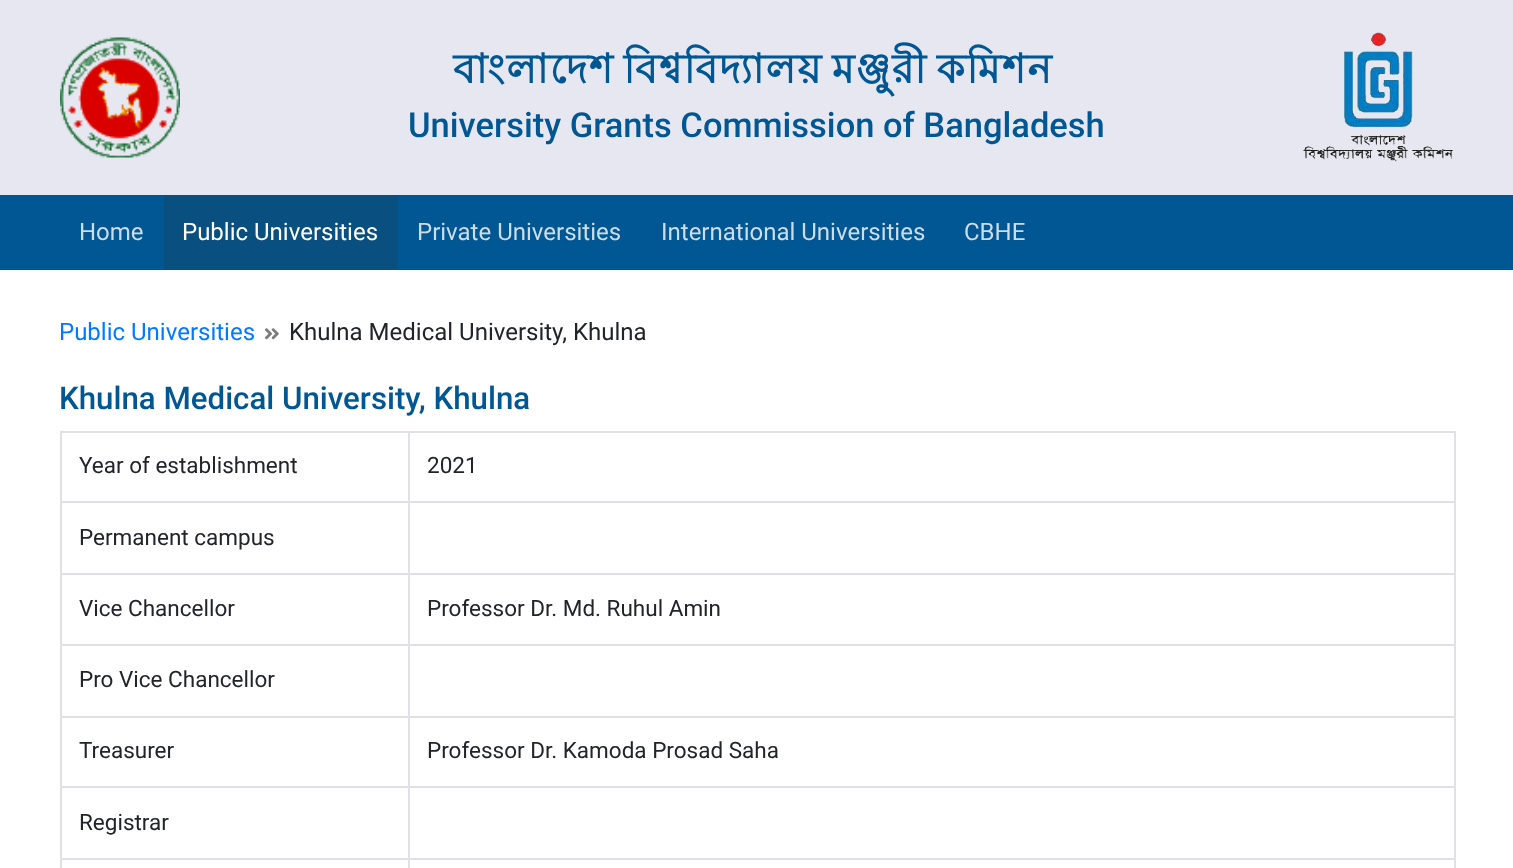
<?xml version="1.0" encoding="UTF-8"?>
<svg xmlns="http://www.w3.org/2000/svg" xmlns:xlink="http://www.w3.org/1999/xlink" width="1513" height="868">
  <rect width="100%" height="100%" fill="#ffffff" />
  <rect width="1513" height="195" fill="#e7e7f1" />
  <image x="60" y="37" width="120" height="121" xlink:href="image1.png" />
  <image x="1303" y="32" width="150" height="130" xlink:href="image2.png" />
  <rect y="195" width="1513" height="75" fill="#015794" />
  <rect x="164" y="195" width="234" height="75" fill="#094f80" />
  <image x="264" y="328" width="15" height="12" xlink:href="image3.png" />
  <rect x="60" y="431" width="1395" height="2" fill="#dee2e6" />
  <rect x="1454" y="431" width="2" height="437" fill="#dee2e6" />
  <rect x="60" y="431" width="2" height="437" fill="#dee2e6" />
  <rect x="408" y="858" width="2" height="10" fill="#dee2e6" />
  <rect x="408" y="858" width="1047" height="2" fill="#dee2e6" />
  <rect x="408" y="786" width="2" height="74" fill="#dee2e6" />
  <rect x="408" y="786" width="1047" height="2" fill="#dee2e6" />
  <rect x="408" y="716" width="2" height="72" fill="#dee2e6" />
  <rect x="408" y="716" width="1047" height="2" fill="#dee2e6" />
  <rect x="408" y="644" width="2" height="73" fill="#dee2e6" />
  <rect x="408" y="644" width="1047" height="2" fill="#dee2e6" />
  <rect x="408" y="573" width="2" height="72" fill="#dee2e6" />
  <rect x="408" y="573" width="1047" height="2" fill="#dee2e6" />
  <rect x="408" y="501" width="2" height="74" fill="#dee2e6" />
  <rect x="408" y="501" width="1047" height="2" fill="#dee2e6" />
  <rect x="408" y="431" width="2" height="72" fill="#dee2e6" />
  <rect x="60" y="501" width="350" height="2" fill="#dee2e6" />
  <rect x="60" y="573" width="350" height="2" fill="#dee2e6" />
  <rect x="60" y="644" width="350" height="2" fill="#dee2e6" />
  <rect x="60" y="716" width="350" height="2" fill="#dee2e6" />
  <rect x="60" y="786" width="350" height="2" fill="#dee2e6" />
  <rect x="60" y="858" width="350" height="2" fill="#dee2e6" />
  <text x="453" y="83" word-spacing="-3.5" style="font-family: Lohit Bengali; font-size: 40.5px; font-weight: bold; letter-spacing: 1.5px; fill: #015794">বাংলাদেশ বিশ্ববিদ্যালয় মঞ্জুরী কমিশন</text>
  <text x="408" y="137" style="font-family: Roboto; font-size: 34.5px; font-weight: 500; fill: #015794">University Grants Commission of Bangladesh</text>
  <text x="79" y="240" style="font-family: Roboto; font-size: 24px; fill: #ccddea">Home</text>
  <text x="182" y="240" style="font-family: Roboto; font-size: 24px; fill: #ffffff">Public Universities</text>
  <text x="417" y="240" style="font-family: Roboto; font-size: 24px; fill: #ccddea">Private Universities</text>
  <text x="661" y="240" style="font-family: Roboto; font-size: 24px; fill: #ccddea">International Universities</text>
  <text x="964" y="240" style="font-family: Roboto; font-size: 24px; fill: #ccddea">CBHE</text>
  <text x="59" y="340" style="font-family: Roboto; font-size: 24px; fill: #007bff">Public Universities</text>
  <text x="289" y="340" style="font-family: Roboto; font-size: 24px; fill: #212529">Khulna Medical University, Khulna</text>
  <text x="59" y="409" style="font-family: Roboto; font-size: 31.25px; font-weight: 500; fill: #015794">Khulna Medical University, Khulna</text>
  <text x="79" y="473" style="font-family: Roboto; font-size: 22.5px; fill: #212529">Year of establishment</text>
  <text x="427" y="473" style="font-family: Roboto; font-size: 22.5px; fill: #212529">2021</text>
  <text x="79" y="545" style="font-family: Roboto; font-size: 22.5px; fill: #212529">Permanent campus</text>
  <text x="79" y="616" style="font-family: Roboto; font-size: 22.5px; fill: #212529">Vice Chancellor</text>
  <text x="427" y="616" style="font-family: Roboto; font-size: 22.5px; fill: #212529">Professor Dr. Md. Ruhul Amin</text>
  <text x="79" y="687" style="font-family: Roboto; font-size: 22.5px; fill: #212529">Pro Vice Chancellor</text>
  <text x="79" y="758" style="font-family: Roboto; font-size: 22.5px; fill: #212529">Treasurer</text>
  <text x="427" y="758" style="font-family: Roboto; font-size: 22.5px; fill: #212529">Professor Dr. Kamoda Prosad Saha</text>
  <text x="79" y="830" style="font-family: Roboto; font-size: 22.5px; fill: #212529">Registrar</text>
</svg>
